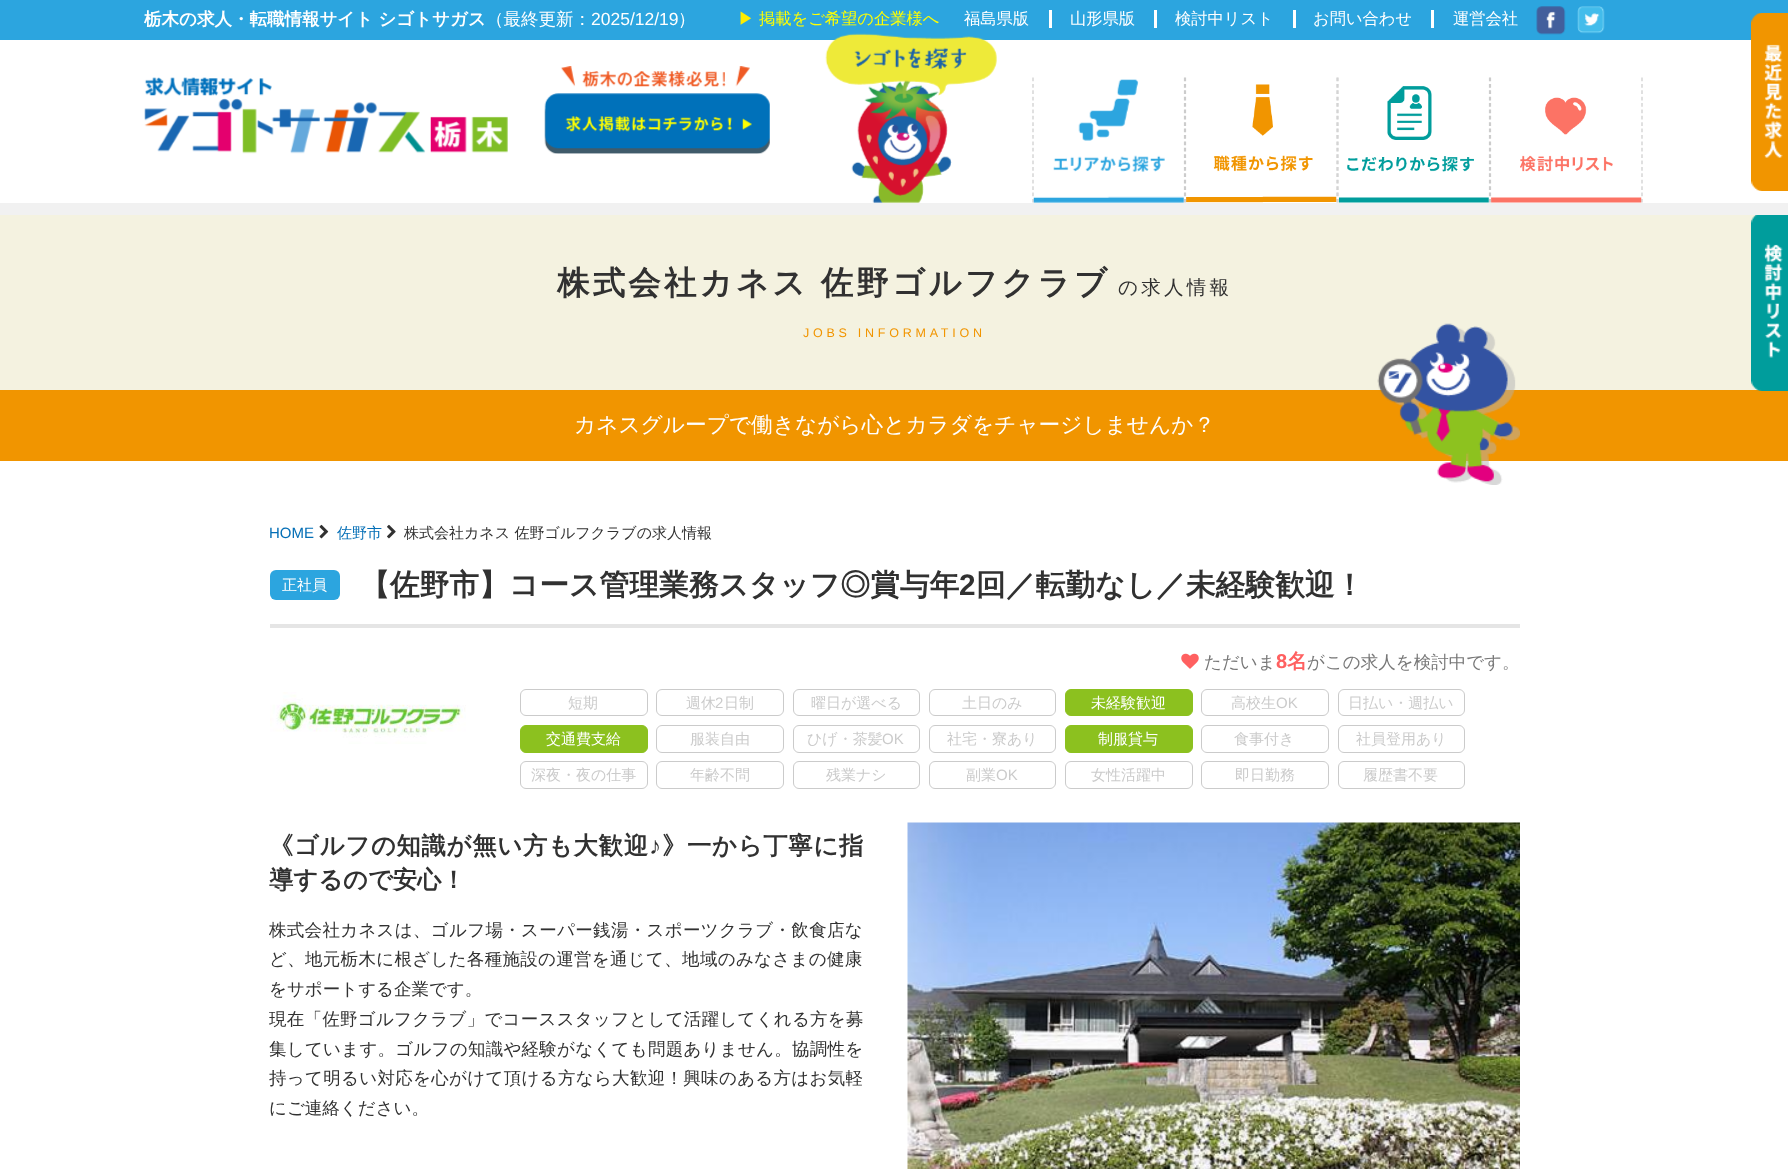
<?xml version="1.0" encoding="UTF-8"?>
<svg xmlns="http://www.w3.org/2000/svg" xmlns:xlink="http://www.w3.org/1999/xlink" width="1788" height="1169">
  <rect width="100%" height="100%" fill="#ffffff" />
  <rect width="1788" height="40" fill="#2ca5df" />
  <rect x="1049" y="10" width="3" height="18" fill="#ffffff" />
  <rect x="1154" y="10" width="3" height="18" fill="#ffffff" />
  <rect x="1293" y="10" width="3" height="18" fill="#ffffff" />
  <rect x="1431" y="10" width="3" height="18" fill="#ffffff" />
  <image x="1536" y="6" width="30" height="29" xlink:href="image1.png" />
  <image x="1577" y="6" width="28" height="28" xlink:href="image2.png" />
  <rect y="203" width="1788" height="12" fill="#f1f1f1" />
  <image x="144" y="77" width="364" height="77" xlink:href="image3.png" />
  <image x="544" y="66" width="226" height="88" xlink:href="image4.png" />
  <image x="825" y="33" width="172" height="170" xlink:href="image5.png" />
  <path d="M 1184.5 77.5 v 125" fill="none" stroke="#cccccc" stroke-width="1.2" stroke-dasharray="3.75 2.64" />
  <path d="M 1033 77.5 v 125" fill="none" stroke="#cccccc" stroke-width="1.2" stroke-dasharray="3.75 2.64" />
  <image x="1033" y="79" width="151" height="124" xlink:href="image6.png" />
  <path d="M 1337 77.5 v 125" fill="none" stroke="#cccccc" stroke-width="1.2" stroke-dasharray="3.75 2.64" />
  <path d="M 1185.5 77.5 v 125" fill="none" stroke="#cccccc" stroke-width="1.2" stroke-dasharray="3.75 2.64" />
  <image x="1186" y="84" width="151" height="119" xlink:href="image7.png" />
  <path d="M 1489.5 77.5 v 125" fill="none" stroke="#cccccc" stroke-width="1.2" stroke-dasharray="3.75 2.64" />
  <path d="M 1338 77.5 v 125" fill="none" stroke="#cccccc" stroke-width="1.2" stroke-dasharray="3.75 2.64" />
  <image x="1338" y="86" width="151" height="117" xlink:href="image8.png" />
  <path d="M 1642 77.5 v 125" fill="none" stroke="#cccccc" stroke-width="1.2" stroke-dasharray="3.75 2.64" />
  <path d="M 1490.5 77.5 v 125" fill="none" stroke="#cccccc" stroke-width="1.2" stroke-dasharray="3.75 2.64" />
  <image x="1491" y="97" width="151" height="106" xlink:href="image9.png" />
  <image x="1751" y="13" width="37" height="178" xlink:href="image10.png" />
  <rect y="215" width="1761" height="175" fill="#f4f2e0" />
  <rect y="390" width="1788" height="71" fill="#f19500" />
  <image x="1751" y="215" width="37" height="176" xlink:href="image11.png" />
  <image x="1377" y="323" width="143" height="162" xlink:href="image12.png" />
  <image x="319" y="524" width="10" height="15" xlink:href="image13.png" />
  <image x="387" y="524" width="9" height="15" xlink:href="image14.png" />
  <rect x="270" y="624" width="1250" height="4" fill="#e5e5e5" />
  <rect x="270" y="570" width="70" height="30" rx="6" fill="#2ca5df" />
  <image x="270" y="692" width="196" height="52" xlink:href="image15.png" />
  <image x="1181" y="653" width="18" height="16" xlink:href="image16.png" />
  <rect x="520.5" y="689.5" width="127" height="26" rx="5.5" fill="none" stroke="#cbcbcb" />
  <rect x="656.5" y="689.5" width="127" height="26" rx="5.5" fill="none" stroke="#cbcbcb" />
  <rect x="793.5" y="689.5" width="126" height="26" rx="5.5" fill="none" stroke="#cbcbcb" />
  <rect x="929.5" y="689.5" width="126" height="26" rx="5.5" fill="none" stroke="#cbcbcb" />
  <rect x="1065.5" y="689.5" width="127" height="26" rx="5.5" fill="#8cc11f" stroke="#8cc11f" />
  <rect x="1201.5" y="689.5" width="127" height="26" rx="5.5" fill="none" stroke="#cbcbcb" />
  <rect x="1338.5" y="689.5" width="126" height="26" rx="5.5" fill="none" stroke="#cbcbcb" />
  <rect x="520.5" y="725.5" width="127" height="27" rx="5.5" fill="#8cc11f" stroke="#8cc11f" />
  <rect x="656.5" y="725.5" width="127" height="27" rx="5.5" fill="none" stroke="#cbcbcb" />
  <rect x="793.5" y="725.5" width="126" height="27" rx="5.5" fill="none" stroke="#cbcbcb" />
  <rect x="929.5" y="725.5" width="126" height="27" rx="5.5" fill="none" stroke="#cbcbcb" />
  <rect x="1065.5" y="725.5" width="127" height="27" rx="5.5" fill="#8cc11f" stroke="#8cc11f" />
  <rect x="1201.5" y="725.5" width="127" height="27" rx="5.5" fill="none" stroke="#cbcbcb" />
  <rect x="1338.5" y="725.5" width="126" height="27" rx="5.5" fill="none" stroke="#cbcbcb" />
  <rect x="520.5" y="761.5" width="127" height="27" rx="5.5" fill="none" stroke="#cbcbcb" />
  <rect x="656.5" y="761.5" width="127" height="27" rx="5.5" fill="none" stroke="#cbcbcb" />
  <rect x="793.5" y="761.5" width="126" height="27" rx="5.5" fill="none" stroke="#cbcbcb" />
  <rect x="929.5" y="761.5" width="126" height="27" rx="5.5" fill="none" stroke="#cbcbcb" />
  <rect x="1065.5" y="761.5" width="127" height="27" rx="5.5" fill="none" stroke="#cbcbcb" />
  <rect x="1201.5" y="761.5" width="127" height="27" rx="5.5" fill="none" stroke="#cbcbcb" />
  <rect x="1338.5" y="761.5" width="126" height="27" rx="5.5" fill="none" stroke="#cbcbcb" />
  <image x="907" y="822" width="613" height="347" xlink:href="image17.png" />
  <text x="144" y="25" style="font-family: WenQuanYi Zen Hei; font-size: 17.5px; font-weight: bold; fill: #ffffff">栃木の求人・転職情報サイト シゴトサガス</text>
  <text x="486" y="25" style="font-family: WenQuanYi Zen Hei; font-size: 17.5px; font-weight: 500; fill: #ffffff">（最終更新：</text>
  <text x="591" y="25" style="font-family: Liberation Sans; font-size: 17.5px; fill: #ffffff">2025/12/19</text>
  <text x="678" y="25" style="font-family: WenQuanYi Zen Hei; font-size: 17.5px; font-weight: 500; fill: #ffffff">）</text>
  <text x="738" y="24" style="font-family: WenQuanYi Zen Hei; font-size: 16.25px; font-weight: 500; fill: #feed00">▶︎</text>
  <text x="759" y="24" style="font-family: WenQuanYi Zen Hei; font-size: 16.25px; font-weight: 500; fill: #ffff00">掲載をご希望の企業様へ</text>
  <text x="964" y="24" style="font-family: WenQuanYi Zen Hei; font-size: 16.25px; font-weight: 500; fill: #ffffff">福島県版</text>
  <text x="1070" y="24" style="font-family: WenQuanYi Zen Hei; font-size: 16.25px; font-weight: 500; fill: #ffffff">山形県版</text>
  <text x="1175" y="24" style="font-family: WenQuanYi Zen Hei; font-size: 16.25px; font-weight: 500; fill: #ffffff">検討中リスト</text>
  <text x="1313" y="24" style="font-family: WenQuanYi Zen Hei; font-size: 16.25px; font-weight: 500; fill: #ffffff">お問い合わせ</text>
  <text x="1453" y="24" style="font-family: WenQuanYi Zen Hei; font-size: 16.25px; font-weight: 500; fill: #ffffff">運営会社</text>
  <text x="557" y="294" word-spacing="-1" style="font-family: WenQuanYi Zen Hei; font-size: 32.4px; font-weight: bold; letter-spacing: 3.25px; fill: #313131">株式会社カネス 佐野ゴルフクラブ</text>
  <text x="1118" y="294" style="font-family: WenQuanYi Zen Hei; font-size: 19.5px; font-weight: 500; letter-spacing: 3.25px; fill: #313131">の求人情報</text>
  <text x="803" y="337" style="font-family: Liberation Sans; font-size: 12.5px; letter-spacing: 3.75px; fill: #f19500">JOBS INFORMATION</text>
  <text x="574" y="432" style="font-family: WenQuanYi Zen Hei; font-size: 21.7px; font-weight: 500; fill: #ffffff">カネスグループで働きながら心とカラダをチャージしませんか？</text>
  <text x="269" y="538" style="font-family: Liberation Sans; font-size: 15px; fill: #036eb6">HOME</text>
  <text x="337" y="538" style="font-family: WenQuanYi Zen Hei; font-size: 15px; font-weight: 500; fill: #036eb6">佐野市</text>
  <text x="404" y="538" style="font-family: WenQuanYi Zen Hei; font-size: 15px; font-weight: 500; fill: #313131">株式会社カネス 佐野ゴルフクラブの求人情報</text>
  <text x="282" y="590" style="font-family: WenQuanYi Zen Hei; font-size: 15px; font-weight: 500; fill: #ffffff">正社員</text>
  <text x="360" y="595" style="font-family: WenQuanYi Zen Hei; font-size: 29.75px; font-weight: bold; fill: #313131">【佐野市】コース管理業務スタッフ◎賞与年</text>
  <text x="959" y="595" style="font-family: Liberation Sans; font-size: 29.75px; font-weight: bold; fill: #313131">2</text>
  <text x="976" y="595" style="font-family: WenQuanYi Zen Hei; font-size: 29.75px; font-weight: bold; fill: #313131">回／転勤なし／未経験歓迎！</text>
  <text x="1204" y="668" style="font-family: WenQuanYi Zen Hei; font-size: 17.5px; font-weight: 500; fill: #777777">ただいま</text>
  <text x="1276" y="668" style="font-family: Liberation Sans; font-size: 20px; font-weight: bold; fill: #ff6060">8</text>
  <text x="1287" y="668" style="font-family: WenQuanYi Zen Hei; font-size: 20px; font-weight: bold; fill: #ff6060">名</text>
  <text x="1307" y="668" style="font-family: WenQuanYi Zen Hei; font-size: 17.5px; font-weight: 500; fill: #777777">がこの求人を検討中です。</text>
  <text x="568" y="708" style="font-family: WenQuanYi Zen Hei; font-size: 15px; font-weight: 500; fill: #cbcbcb">短期</text>
  <text x="686" y="708" style="font-family: WenQuanYi Zen Hei; font-size: 15px; font-weight: 500; fill: #cbcbcb">週休</text>
  <text x="715" y="708" style="font-family: Liberation Sans; font-size: 15px; fill: #cbcbcb">2</text>
  <text x="724" y="708" style="font-family: WenQuanYi Zen Hei; font-size: 15px; font-weight: 500; fill: #cbcbcb">日制</text>
  <text x="811" y="708" style="font-family: WenQuanYi Zen Hei; font-size: 15px; font-weight: 500; fill: #cbcbcb">曜日が選べる</text>
  <text x="962" y="708" style="font-family: WenQuanYi Zen Hei; font-size: 15px; font-weight: 500; fill: #cbcbcb">土日のみ</text>
  <text x="1091" y="708" style="font-family: WenQuanYi Zen Hei; font-size: 15px; font-weight: 500; fill: #ffffff">未経験歓迎</text>
  <text x="1231" y="708" style="font-family: WenQuanYi Zen Hei; font-size: 15px; font-weight: 500; fill: #cbcbcb">高校生</text>
  <text x="1276" y="708" style="font-family: Liberation Sans; font-size: 15px; fill: #cbcbcb">OK</text>
  <text x="1348" y="708" style="font-family: WenQuanYi Zen Hei; font-size: 15px; font-weight: 500; fill: #cbcbcb">日払い・週払い</text>
  <text x="546" y="744" style="font-family: WenQuanYi Zen Hei; font-size: 15px; font-weight: 500; fill: #ffffff">交通費支給</text>
  <text x="690" y="744" style="font-family: WenQuanYi Zen Hei; font-size: 15px; font-weight: 500; fill: #cbcbcb">服装自由</text>
  <text x="807" y="744" style="font-family: WenQuanYi Zen Hei; font-size: 15px; font-weight: 500; fill: #cbcbcb">ひげ・茶髪</text>
  <text x="882" y="744" style="font-family: Liberation Sans; font-size: 15px; fill: #cbcbcb">OK</text>
  <text x="947" y="744" style="font-family: WenQuanYi Zen Hei; font-size: 15px; font-weight: 500; fill: #cbcbcb">社宅・寮あり</text>
  <text x="1098" y="744" style="font-family: WenQuanYi Zen Hei; font-size: 15px; font-weight: 500; fill: #ffffff">制服貸与</text>
  <text x="1234" y="744" style="font-family: WenQuanYi Zen Hei; font-size: 15px; font-weight: 500; fill: #cbcbcb">食事付き</text>
  <text x="1356" y="744" style="font-family: WenQuanYi Zen Hei; font-size: 15px; font-weight: 500; fill: #cbcbcb">社員登用あり</text>
  <text x="531" y="780" style="font-family: WenQuanYi Zen Hei; font-size: 15px; font-weight: 500; fill: #cbcbcb">深夜・夜の仕事</text>
  <text x="690" y="780" style="font-family: WenQuanYi Zen Hei; font-size: 15px; font-weight: 500; fill: #cbcbcb">年齢不問</text>
  <text x="826" y="780" style="font-family: WenQuanYi Zen Hei; font-size: 15px; font-weight: 500; fill: #cbcbcb">残業ナシ</text>
  <text x="966" y="780" style="font-family: WenQuanYi Zen Hei; font-size: 15px; font-weight: 500; fill: #cbcbcb">副業</text>
  <text x="996" y="780" style="font-family: Liberation Sans; font-size: 15px; fill: #cbcbcb">OK</text>
  <text x="1091" y="780" style="font-family: WenQuanYi Zen Hei; font-size: 15px; font-weight: 500; fill: #cbcbcb">女性活躍中</text>
  <text x="1235" y="780" style="font-family: WenQuanYi Zen Hei; font-size: 15px; font-weight: 500; fill: #cbcbcb">即日勤務</text>
  <text x="1363" y="780" style="font-family: WenQuanYi Zen Hei; font-size: 15px; font-weight: 500; fill: #cbcbcb">履歴書不要</text>
  <text x="269" y="854" style="font-family: WenQuanYi Zen Hei; font-size: 24.3px; font-weight: bold; letter-spacing: 0.75px; fill: #313131">《ゴルフの知識が無い方も大歓迎</text>
  <text x="649" y="854" style="font-family: Liberation Sans; font-size: 24.3px; font-weight: bold; letter-spacing: 0.75px; fill: #313131">♪</text>
  <text x="662" y="854" style="font-family: WenQuanYi Zen Hei; font-size: 24.3px; font-weight: bold; letter-spacing: 0.75px; fill: #313131">》一から丁寧に指</text>
  <text x="269" y="888" style="font-family: WenQuanYi Zen Hei; font-size: 24.3px; font-weight: bold; fill: #313131">導するので安心！</text>
  <text x="269" y="936" style="font-family: WenQuanYi Zen Hei; font-size: 17.5px; font-weight: 500; letter-spacing: 0.3px; fill: #313131">株式会社カネスは、ゴルフ場・スーパー銭湯・スポーツクラブ・飲食店な</text>
  <text x="269" y="965" style="font-family: WenQuanYi Zen Hei; font-size: 17.5px; font-weight: 500; letter-spacing: 0.3px; fill: #313131">ど、地元栃木に根ざした各種施設の運営を通じて、地域のみなさまの健康</text>
  <text x="269" y="995" style="font-family: WenQuanYi Zen Hei; font-size: 17.5px; font-weight: 500; fill: #313131">をサポートする企業です。</text>
  <text x="269" y="1025" style="font-family: WenQuanYi Zen Hei; font-size: 17.5px; font-weight: 500; letter-spacing: 0.25px; fill: #313131">現在「佐野ゴルフクラブ」でコーススタッフとして活躍してくれる方を募</text>
  <text x="269" y="1055" style="font-family: WenQuanYi Zen Hei; font-size: 17.5px; font-weight: 500; letter-spacing: 0.25px; fill: #313131">集しています。ゴルフの知識や経験がなくても問題ありません。協調性を</text>
  <text x="269" y="1084" style="font-family: WenQuanYi Zen Hei; font-size: 17.5px; font-weight: 500; letter-spacing: 0.3px; fill: #313131">持って明るい対応を心がけて頂ける方なら大歓迎！興味のある方はお気軽</text>
  <text x="269" y="1114" style="font-family: WenQuanYi Zen Hei; font-size: 17.5px; font-weight: 500; fill: #313131">にご連絡ください。</text>
</svg>
